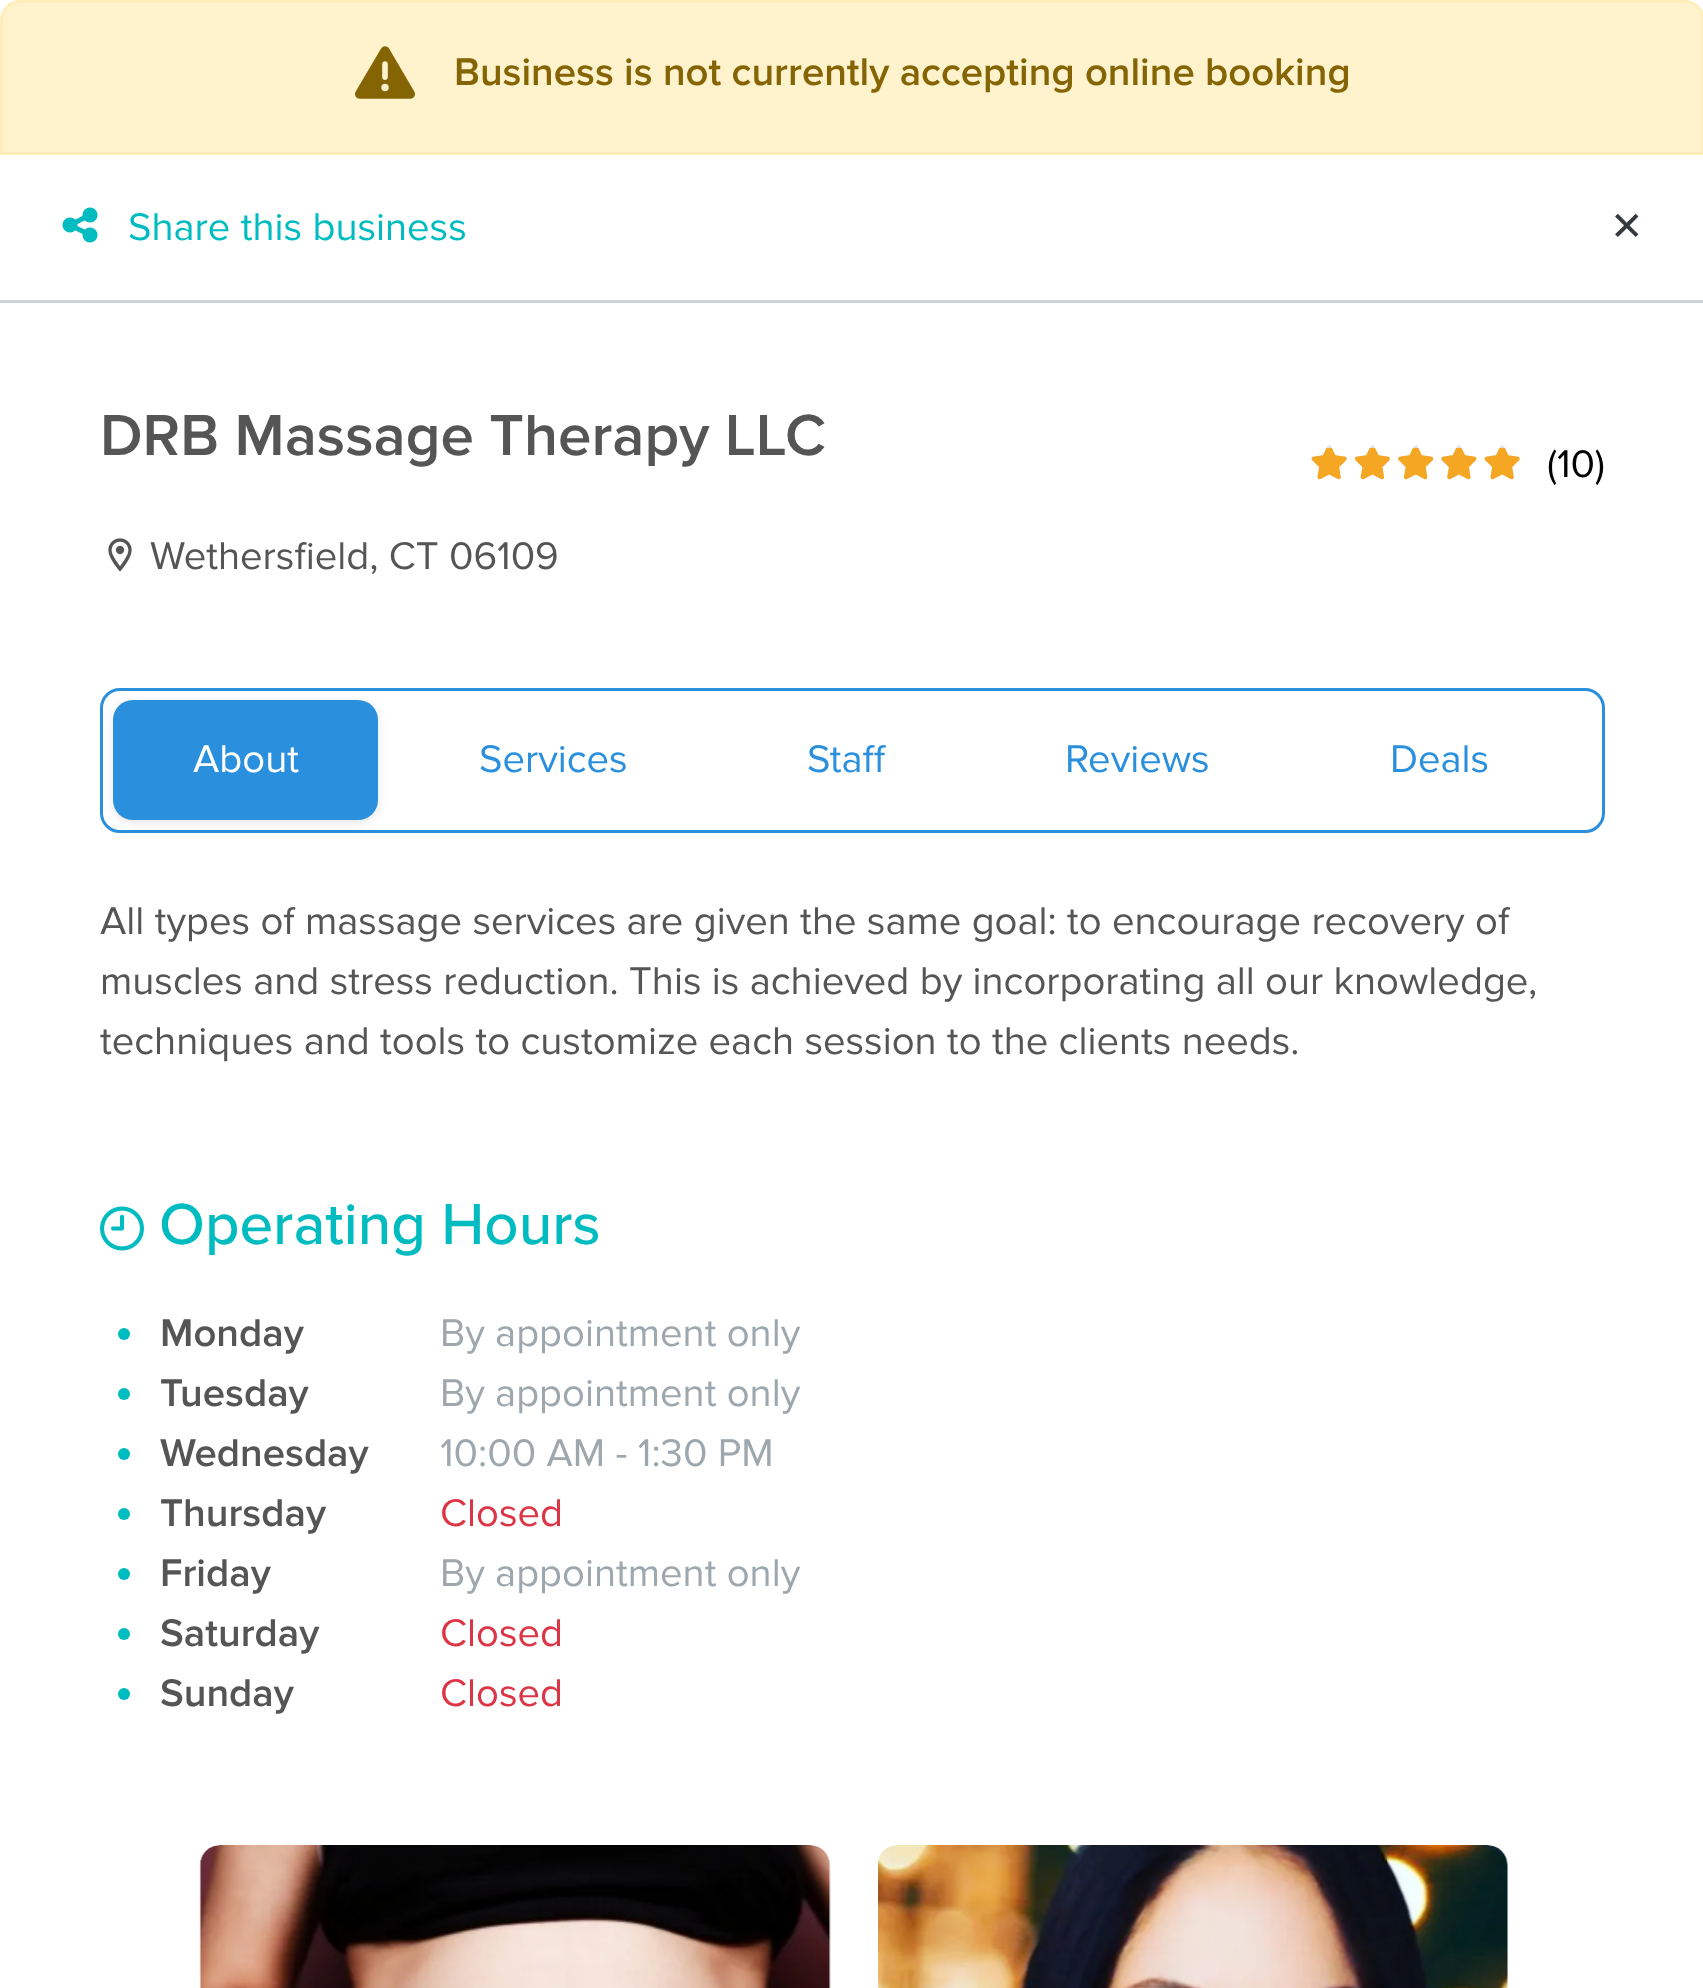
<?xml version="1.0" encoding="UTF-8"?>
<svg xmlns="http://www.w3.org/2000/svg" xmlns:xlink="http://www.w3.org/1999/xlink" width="1703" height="1988">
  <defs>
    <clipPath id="clip1"><rect x="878" y="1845" width="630" height="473" rx="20" /></clipPath>
  </defs>
  <rect width="100%" height="100%" fill="#ffffff" />
  <path d="M 20 1.5 h 1665 c 10 0 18.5 8.5 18.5 18.5 v 133.5 h -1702 v -133.5 c 0 -10 8.5 -18.5 18.5 -18.5 z" fill="#fff3cd" stroke="#ffeeba" stroke-width="3" />
  <image x="355" y="46" width="60" height="53" xlink:href="image1.png" />
  <rect y="300" width="1703" height="3" fill="#ced4da" />
  <image x="62" y="207" width="36" height="36" xlink:href="image2.png" />
  <image x="108" y="538" width="24" height="34" xlink:href="image3.png" />
  <image x="1311" y="445" width="209" height="35" xlink:href="image4.png" />
  <image x="1311" y="448" width="209" height="32" xlink:href="image5.png" />
  <rect x="101.5" y="689.5" width="1502" height="142" rx="18.5" fill="none" stroke="#2a90de" stroke-width="3" />
  <rect x="113" y="703" width="265" height="120" rx="20" fill="#121212" fill-opacity="0.1" filter="blur(5px)" />
  <rect x="113" y="700" width="265" height="120" rx="20" fill="#2a90de" />
  <image x="100" y="1206" width="44" height="45" xlink:href="image6.png" />
  <circle cx="124" cy="1334" r="6" fill="#00bcc0" />
  <circle cx="124" cy="1394" r="6" fill="#00bcc0" />
  <circle cx="124" cy="1454" r="6" fill="#00bcc0" />
  <circle cx="124" cy="1514" r="6" fill="#00bcc0" />
  <circle cx="124" cy="1574" r="6" fill="#00bcc0" />
  <circle cx="124" cy="1634" r="6" fill="#00bcc0" />
  <circle cx="124" cy="1694" r="6" fill="#00bcc0" />
  <image x="199" y="1845" width="632" height="143" xlink:href="image7.png" />
  <g clip-path="url(#clip1)">
    <rect x="878" y="1850" width="630" height="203" rx="20" fill="#03464a" fill-opacity="0.1" filter="blur(15px)" />
  </g>
  <image x="878" y="1845" width="630" height="143" xlink:href="image8.png" />
  <text x="454" y="85" style="font-family: Proxima Nova; font-size: 40px; font-weight: 600; fill: #856404">Business is not currently accepting online booking</text>
  <text x="128" y="240" style="font-family: Proxima Nova; font-size: 40px; fill: #00bcc0">Share this business</text>
  <text x="1610" y="240" style="font-family: DejaVu Sans; font-size: 40px; letter-spacing: 1px; fill: #343a40">✕</text>
  <text x="100" y="455" style="font-family: Proxima Nova; font-size: 60px; font-weight: 600; fill: #555555">DRB Massage Therapy LLC</text>
  <text x="150" y="569" style="font-family: Proxima Nova; font-size: 40px; fill: #555555">Wethersfield, CT 06109</text>
  <text x="1547" y="477" style="font-family: Proxima Nova; font-size: 40px; fill: #000000">(10)</text>
  <text x="193" y="772" style="font-family: Proxima Nova; font-size: 40px; fill: #ffffff">About</text>
  <text x="479" y="772" style="font-family: Proxima Nova; font-size: 40px; fill: #2a90de">Services</text>
  <text x="807" y="772" style="font-family: Proxima Nova; font-size: 40px; fill: #2a90de">Staff</text>
  <text x="1065" y="772" style="font-family: Proxima Nova; font-size: 40px; fill: #2a90de">Reviews</text>
  <text x="1390" y="772" style="font-family: Proxima Nova; font-size: 40px; fill: #2a90de">Deals</text>
  <text x="100" y="934" style="font-family: Proxima Nova; font-size: 40px; fill: #555555">All types of massage services are given the same goal: to encourage recovery of</text>
  <text x="100" y="994" style="font-family: Proxima Nova; font-size: 40px; fill: #555555">muscles and stress reduction. This is achieved by incorporating all our knowledge,</text>
  <text x="100" y="1054" style="font-family: Proxima Nova; font-size: 40px; fill: #555555">techniques and tools to customize each session to the clients needs.</text>
  <text x="159" y="1244" style="font-family: Proxima Nova; font-size: 60px; font-weight: 500; fill: #00bcc0">Operating Hours</text>
  <text x="160" y="1346" style="font-family: Proxima Nova; font-size: 40px; font-weight: 600; fill: #555555">Monday</text>
  <text x="440" y="1346" style="font-family: Proxima Nova; font-size: 40px; fill: #9da7ad">By appointment only</text>
  <text x="160" y="1406" style="font-family: Proxima Nova; font-size: 40px; font-weight: 600; fill: #555555">Tuesday</text>
  <text x="440" y="1406" style="font-family: Proxima Nova; font-size: 40px; fill: #9da7ad">By appointment only</text>
  <text x="160" y="1466" style="font-family: Proxima Nova; font-size: 40px; font-weight: 600; fill: #555555">Wednesday</text>
  <text x="440" y="1466" style="font-family: Proxima Nova; font-size: 40px; fill: #9da7ad">10:00 AM - 1:30 PM</text>
  <text x="160" y="1526" style="font-family: Proxima Nova; font-size: 40px; font-weight: 600; fill: #555555">Thursday</text>
  <text x="440" y="1526" style="font-family: Proxima Nova; font-size: 40px; fill: #dc3545">Closed</text>
  <text x="160" y="1586" style="font-family: Proxima Nova; font-size: 40px; font-weight: 600; fill: #555555">Friday</text>
  <text x="440" y="1586" style="font-family: Proxima Nova; font-size: 40px; fill: #9da7ad">By appointment only</text>
  <text x="160" y="1646" style="font-family: Proxima Nova; font-size: 40px; font-weight: 600; fill: #555555">Saturday</text>
  <text x="440" y="1646" style="font-family: Proxima Nova; font-size: 40px; fill: #dc3545">Closed</text>
  <text x="160" y="1706" style="font-family: Proxima Nova; font-size: 40px; font-weight: 600; fill: #555555">Sunday</text>
  <text x="440" y="1706" style="font-family: Proxima Nova; font-size: 40px; fill: #dc3545">Closed</text>
</svg>
